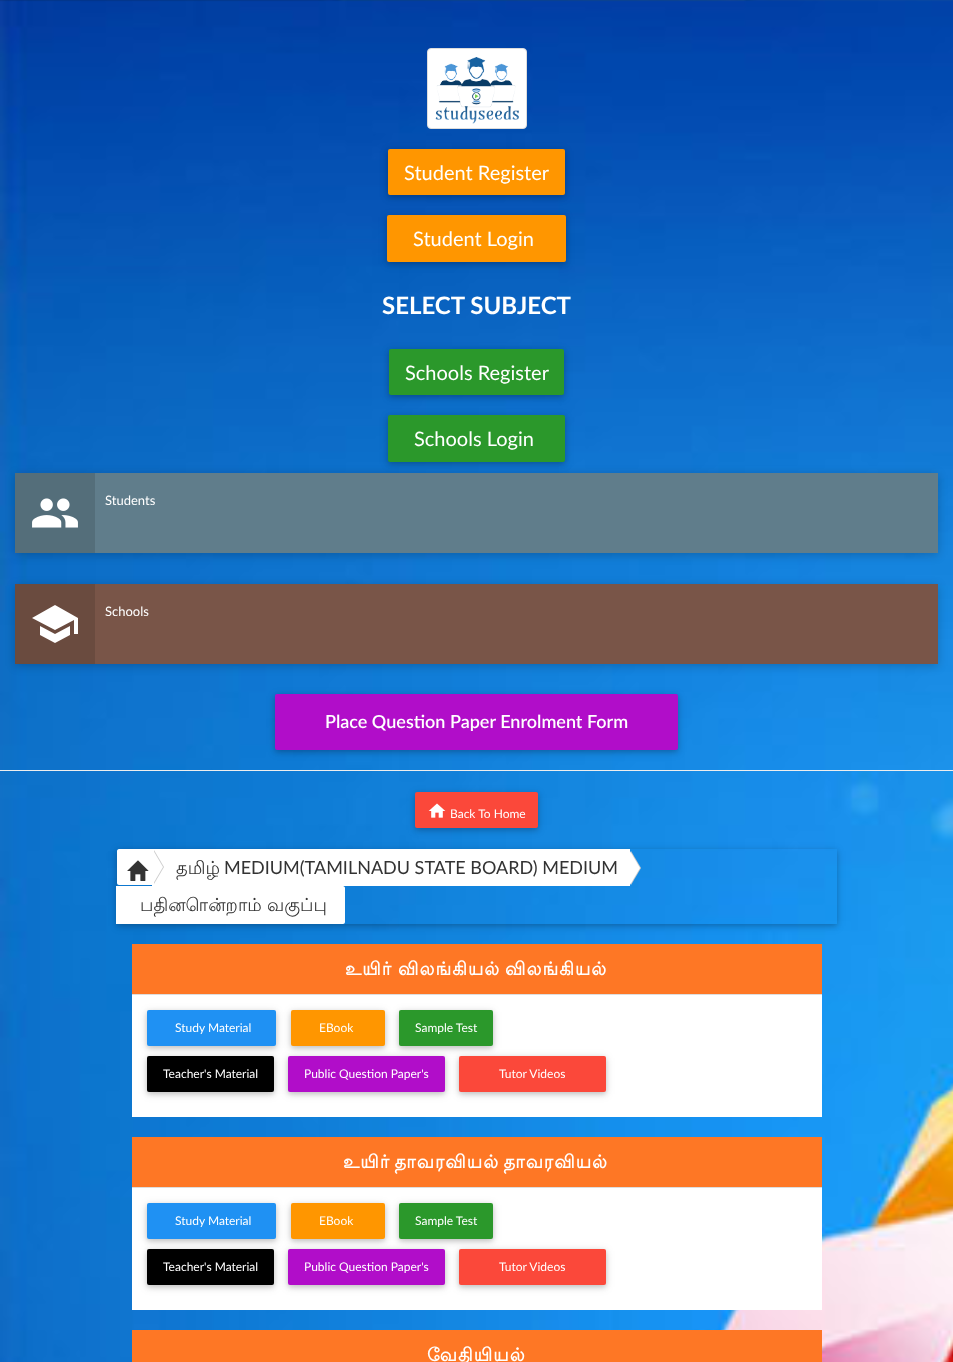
<?xml version="1.0" encoding="UTF-8"?>
<svg xmlns="http://www.w3.org/2000/svg" xmlns:xlink="http://www.w3.org/1999/xlink" width="953" height="1362">
  <defs>
    <clipPath id="clip1"><path d="M 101 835 h 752 v 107 h -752 z m 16 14 h 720 v 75 h -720 z" clip-rule="evenodd" /></clipPath>
    <clipPath id="clip2"><path d="M 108 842 h 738 v 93 h -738 z m 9 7 h 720 v 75 h -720 z" clip-rule="evenodd" /></clipPath>
  </defs>
  <rect width="100%" height="100%" fill="#ffffff" />
  <image x="0" y="0" width="953" height="1362" xlink:href="image1.png" />
  <rect x="427.5" y="48.5" width="99" height="80" rx="3.5" fill="#ffffff" stroke="#dddddd" />
  <image x="435" y="57" width="84" height="67" xlink:href="image2.png" />
  <rect x="388" y="151" width="177" height="46" rx="2" fill="#000000" fill-opacity="0.12" filter="blur(5px)" />
  <rect x="388" y="151" width="177" height="46" rx="2" fill="#000000" fill-opacity="0.16" filter="blur(2.5px)" />
  <rect x="388" y="149" width="177" height="46" rx="2" fill="#ff9600" />
  <rect x="387" y="217" width="179" height="47" rx="2" fill="#000000" fill-opacity="0.12" filter="blur(5px)" />
  <rect x="387" y="217" width="179" height="47" rx="2" fill="#000000" fill-opacity="0.16" filter="blur(2.5px)" />
  <rect x="387" y="215" width="179" height="47" rx="2" fill="#ff9600" />
  <rect x="389" y="351" width="175" height="46" rx="2" fill="#000000" fill-opacity="0.12" filter="blur(5px)" />
  <rect x="389" y="351" width="175" height="46" rx="2" fill="#000000" fill-opacity="0.16" filter="blur(2.5px)" />
  <rect x="389" y="349" width="175" height="46" rx="2" fill="#2b982b" />
  <rect x="388" y="417" width="177" height="47" rx="2" fill="#000000" fill-opacity="0.12" filter="blur(5px)" />
  <rect x="388" y="417" width="177" height="47" rx="2" fill="#000000" fill-opacity="0.16" filter="blur(2.5px)" />
  <rect x="388" y="415" width="177" height="47" rx="2" fill="#2b982b" />
  <rect x="15" y="475" width="923" height="80" fill="#000000" fill-opacity="0.2" filter="blur(5px)" />
  <rect x="95" y="473" width="843" height="80" fill="#607d8b" />
  <rect x="15" y="473" width="80" height="80" fill="#546e7a" />
  <image x="32" y="498" width="46" height="30" xlink:href="image3.png" />
  <rect x="15" y="586" width="923" height="80" fill="#000000" fill-opacity="0.2" filter="blur(5px)" />
  <rect x="95" y="584" width="843" height="80" fill="#795548" />
  <rect x="15" y="584" width="80" height="80" fill="#6a4b3f" />
  <path d="M 55 605 l 23 13 v 16 h -4 v -14 l -19 10 l -23 -12 z m -15 21 l 15 8 l 15 -8 v 9 l -15 8 l -15 -8 z" fill="#ffffff" />
  <rect x="275" y="696" width="403" height="56" rx="2" fill="#000000" fill-opacity="0.12" filter="blur(5px)" />
  <rect x="275" y="696" width="403" height="56" rx="2" fill="#000000" fill-opacity="0.16" filter="blur(2.5px)" />
  <rect x="275" y="694" width="403" height="56" rx="2" fill="#b10dc9" />
  <rect y="770" width="953" height="1" fill="#eeeeee" />
  <rect x="415" y="794" width="123" height="36" rx="2" fill="#000000" fill-opacity="0.12" filter="blur(5px)" />
  <rect x="415" y="794" width="123" height="36" rx="2" fill="#000000" fill-opacity="0.16" filter="blur(2.5px)" />
  <rect x="415" y="792" width="123" height="36" rx="2" fill="#fb483a" />
  <image x="428" y="803" width="18" height="15" xlink:href="image4.png" />
  <g clip-path="url(#clip1)">
    <rect x="117" y="851" width="720" height="75" fill="#000000" fill-opacity="0.12" filter="blur(5px)" />
  </g>
  <g clip-path="url(#clip2)">
    <rect x="117" y="851" width="720" height="75" fill="#000000" fill-opacity="0.16" filter="blur(2.5px)" />
  </g>
  <path d="M 119 849 h 34 v 36 h -34 c -1 0 -2 -1 -2 -2 v -32 c 0 -1 1 -2 2 -2 z" fill="#ffffff" />
  <rect x="152" y="849" width="478" height="37" fill="#ffffff" />
  <path d="M 154 884 v -34 l 10 17 z" fill="#cccccc" />
  <path d="M 153 884 v -34 l 10 17 z" fill="#ffffff" />
  <image x="127" y="860" width="22" height="21" xlink:href="image5.png" />
  <path d="M 631 885 v -34 l 10 17 z" fill="#cccccc" />
  <path d="M 630 885 v -34 l 10 17 z" fill="#ffffff" />
  <path d="M 116 886 h 227 c 1 0 2 1 2 2 v 34 c 0 1 -1 2 -2 2 h -227 z" fill="#ffffff" />
  <rect x="132" y="995" width="690" height="122" fill="#ffffff" />
  <rect x="132" y="944" width="690" height="50" fill="#fe7725" />
  <rect x="132" y="994" width="690" height="1" fill="#dddddd" />
  <rect x="147" y="1012" width="129" height="36" rx="2" fill="#000000" fill-opacity="0.12" filter="blur(5px)" />
  <rect x="147" y="1012" width="129" height="36" rx="2" fill="#000000" fill-opacity="0.16" filter="blur(2.5px)" />
  <rect x="147" y="1010" width="129" height="36" rx="2" fill="#1f91f3" />
  <rect x="291" y="1012" width="94" height="36" rx="2" fill="#000000" fill-opacity="0.12" filter="blur(5px)" />
  <rect x="291" y="1012" width="94" height="36" rx="2" fill="#000000" fill-opacity="0.16" filter="blur(2.5px)" />
  <rect x="291" y="1010" width="94" height="36" rx="2" fill="#ff9600" />
  <rect x="399" y="1012" width="94" height="36" rx="2" fill="#000000" fill-opacity="0.12" filter="blur(5px)" />
  <rect x="399" y="1012" width="94" height="36" rx="2" fill="#000000" fill-opacity="0.16" filter="blur(2.5px)" />
  <rect x="399" y="1010" width="94" height="36" rx="2" fill="#2b982b" />
  <rect x="147" y="1058" width="127" height="36" rx="2" fill="#000000" fill-opacity="0.12" filter="blur(5px)" />
  <rect x="147" y="1058" width="127" height="36" rx="2" fill="#000000" fill-opacity="0.16" filter="blur(2.5px)" />
  <rect x="147" y="1056" width="127" height="36" rx="2" fill="#000000" />
  <rect x="288" y="1058" width="157" height="36" rx="2" fill="#000000" fill-opacity="0.12" filter="blur(5px)" />
  <rect x="288" y="1058" width="157" height="36" rx="2" fill="#000000" fill-opacity="0.16" filter="blur(2.5px)" />
  <rect x="288" y="1056" width="157" height="36" rx="2" fill="#b10dc9" />
  <rect x="459" y="1058" width="147" height="36" rx="2" fill="#000000" fill-opacity="0.12" filter="blur(5px)" />
  <rect x="459" y="1058" width="147" height="36" rx="2" fill="#000000" fill-opacity="0.16" filter="blur(2.5px)" />
  <rect x="459" y="1056" width="147" height="36" rx="2" fill="#fb483a" />
  <rect x="132" y="1188" width="690" height="122" fill="#ffffff" />
  <rect x="132" y="1137" width="690" height="50" fill="#fe7725" />
  <rect x="132" y="1187" width="690" height="1" fill="#dddddd" />
  <rect x="147" y="1205" width="129" height="36" rx="2" fill="#000000" fill-opacity="0.12" filter="blur(5px)" />
  <rect x="147" y="1205" width="129" height="36" rx="2" fill="#000000" fill-opacity="0.16" filter="blur(2.5px)" />
  <rect x="147" y="1203" width="129" height="36" rx="2" fill="#1f91f3" />
  <rect x="291" y="1205" width="94" height="36" rx="2" fill="#000000" fill-opacity="0.12" filter="blur(5px)" />
  <rect x="291" y="1205" width="94" height="36" rx="2" fill="#000000" fill-opacity="0.16" filter="blur(2.5px)" />
  <rect x="291" y="1203" width="94" height="36" rx="2" fill="#ff9600" />
  <rect x="399" y="1205" width="94" height="36" rx="2" fill="#000000" fill-opacity="0.12" filter="blur(5px)" />
  <rect x="399" y="1205" width="94" height="36" rx="2" fill="#000000" fill-opacity="0.16" filter="blur(2.5px)" />
  <rect x="399" y="1203" width="94" height="36" rx="2" fill="#2b982b" />
  <rect x="147" y="1251" width="127" height="36" rx="2" fill="#000000" fill-opacity="0.12" filter="blur(5px)" />
  <rect x="147" y="1251" width="127" height="36" rx="2" fill="#000000" fill-opacity="0.16" filter="blur(2.5px)" />
  <rect x="147" y="1249" width="127" height="36" rx="2" fill="#000000" />
  <rect x="288" y="1251" width="157" height="36" rx="2" fill="#000000" fill-opacity="0.12" filter="blur(5px)" />
  <rect x="288" y="1251" width="157" height="36" rx="2" fill="#000000" fill-opacity="0.16" filter="blur(2.5px)" />
  <rect x="288" y="1249" width="157" height="36" rx="2" fill="#b10dc9" />
  <rect x="459" y="1251" width="147" height="36" rx="2" fill="#000000" fill-opacity="0.12" filter="blur(5px)" />
  <rect x="459" y="1251" width="147" height="36" rx="2" fill="#000000" fill-opacity="0.16" filter="blur(2.5px)" />
  <rect x="459" y="1249" width="147" height="36" rx="2" fill="#fb483a" />
  <rect x="132" y="1330" width="690" height="32" fill="#fe7725" />
  <text x="404" y="180" style="font-family: Lato; font-size: 20px; fill: #ffffff">Student Register</text>
  <text x="413" y="246" style="font-family: Lato; font-size: 20px; fill: #ffffff">Student Login</text>
  <text x="382" y="314" style="font-family: Lato; font-size: 24px; font-weight: bold; fill: #ffffff">SELECT SUBJECT</text>
  <text x="405" y="380" style="font-family: Lato; font-size: 20px; fill: #ffffff">Schools Register</text>
  <text x="414" y="446" style="font-family: Lato; font-size: 20px; fill: #ffffff">Schools Login</text>
  <text x="105" y="505" style="font-family: Lato; font-size: 13px; fill: #ffffff">Students</text>
  <text x="105" y="616" style="font-family: Lato; font-size: 13px; fill: #ffffff">Schools</text>
  <text x="325" y="728" style="font-family: Lato; font-size: 18px; font-weight: 600; fill: #ffffff">Place Question Paper Enrolment Form</text>
  <text x="450" y="818" style="font-family: Lato; font-size: 12px; fill: #ffffff">Back To Home</text>
  <text x="176" y="874" style="font-family: Lohit Tamil; font-size: 18px; fill: #333333">தமிழ்</text>
  <text x="224" y="874" style="font-family: Lato; font-size: 18px; fill: #333333">MEDIUM(TAMILNADU STATE BOARD) MEDIUM</text>
  <text x="140" y="911" style="font-family: Lohit Tamil; font-size: 18px; fill: #333333">பதினொன்றாம்</text>
  <text x="267" y="911" style="font-family: Lohit Tamil; font-size: 18px; fill: #333333">வகுப்பு</text>
  <text x="345" y="975" style="font-family: Lohit Tamil; font-size: 18px; font-weight: bold; letter-spacing: 1px; fill: #ffffff">உயிர்</text>
  <text x="398" y="975" style="font-family: Lohit Tamil; font-size: 18px; font-weight: bold; letter-spacing: 1px; fill: #ffffff">விலங்கியல்</text>
  <text x="505" y="975" style="font-family: Lohit Tamil; font-size: 18px; font-weight: bold; letter-spacing: 1px; fill: #ffffff">விலங்கியல்</text>
  <text x="175" y="1032" style="font-family: Lato; font-size: 12px; fill: #ffffff">Study Material</text>
  <text x="319" y="1032" style="font-family: Lato; font-size: 12px; fill: #ffffff">EBook</text>
  <text x="415" y="1032" style="font-family: Lato; font-size: 12px; fill: #ffffff">Sample Test</text>
  <text x="163" y="1078" style="font-family: Lato; font-size: 12px; fill: #ffffff">Teacher's Material</text>
  <text x="304" y="1078" style="font-family: Lato; font-size: 12px; fill: #ffffff">Public Question Paper's</text>
  <text x="499" y="1078" style="font-family: Lato; font-size: 12px; fill: #ffffff">Tutor Videos</text>
  <text x="343" y="1168" word-spacing="-2" style="font-family: Lohit Tamil; font-size: 18px; font-weight: bold; letter-spacing: 1px; fill: #ffffff">உயிர் தாவரவியல் தாவரவியல்</text>
  <text x="175" y="1225" style="font-family: Lato; font-size: 12px; fill: #ffffff">Study Material</text>
  <text x="319" y="1225" style="font-family: Lato; font-size: 12px; fill: #ffffff">EBook</text>
  <text x="415" y="1225" style="font-family: Lato; font-size: 12px; fill: #ffffff">Sample Test</text>
  <text x="163" y="1271" style="font-family: Lato; font-size: 12px; fill: #ffffff">Teacher's Material</text>
  <text x="304" y="1271" style="font-family: Lato; font-size: 12px; fill: #ffffff">Public Question Paper's</text>
  <text x="499" y="1271" style="font-family: Lato; font-size: 12px; fill: #ffffff">Tutor Videos</text>
  <text x="427" y="1361" style="font-family: Lohit Tamil; font-size: 18px; font-weight: bold; letter-spacing: 1px; fill: #ffffff">வேதியியல்</text>
</svg>
